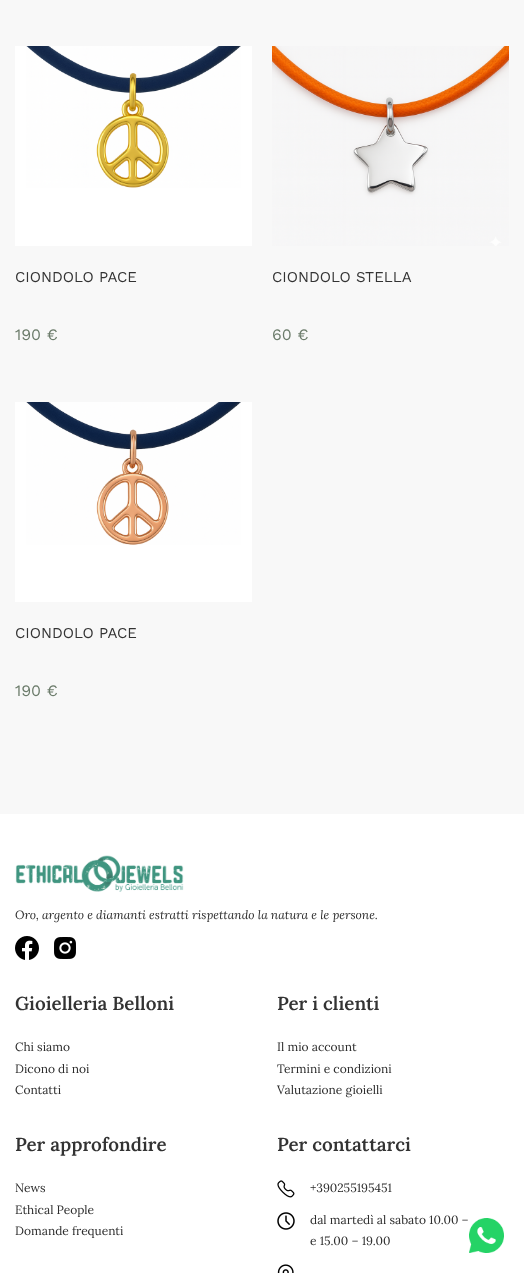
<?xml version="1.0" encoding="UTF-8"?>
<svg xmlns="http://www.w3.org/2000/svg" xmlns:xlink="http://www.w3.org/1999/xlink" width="524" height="1273">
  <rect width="100%" height="100%" fill="#f8f8f8" />
  <rect x="15" y="46" width="237" height="200" fill="#ffffff" />
  <image x="26" y="46" width="215" height="142" xlink:href="image1.png" />
  <image x="272" y="46" width="237" height="200" xlink:href="image2.png" />
  <rect x="15" y="402" width="237" height="200" fill="#ffffff" />
  <image x="26" y="402" width="215" height="143" xlink:href="image3.png" />
  <rect y="814" width="524" height="459" fill="#ffffff" />
  <image x="15" y="855" width="169" height="37" xlink:href="image4.png" />
  <image x="15" y="936" width="24" height="24" xlink:href="image5.png" />
  <image x="54" y="937" width="22" height="22" xlink:href="image6.png" />
  <image x="277" y="1180" width="18" height="18" xlink:href="image7.png" />
  <image x="277" y="1212" width="18" height="18" xlink:href="image8.png" />
  <image x="277" y="1264" width="17" height="9" xlink:href="image9.png" />
  <image x="469" y="1218" width="35" height="35" xlink:href="image10.png" />
  <text x="15" y="282" style="font-family: Work Sans; font-size: 15px; fill: #333333">CIONDOLO PACE</text>
  <text x="15" y="340" style="font-family: Work Sans; font-size: 16px; fill: #6c7c6b">190 €</text>
  <text x="272" y="282" style="font-family: Work Sans; font-size: 15px; fill: #333333">CIONDOLO STELLA</text>
  <text x="272" y="340" style="font-family: Work Sans; font-size: 16px; fill: #6c7c6b">60 €</text>
  <text x="15" y="638" style="font-family: Work Sans; font-size: 15px; fill: #333333">CIONDOLO PACE</text>
  <text x="15" y="696" style="font-family: Work Sans; font-size: 16px; fill: #6c7c6b">190 €</text>
  <text x="15" y="919" style="font-family: Lora; font-size: 12px; font-style: italic; fill: #2c2c2c">Oro, argento e diamanti estratti rispettando la natura e le persone.</text>
  <text x="15" y="1010" style="font-family: Lora; font-size: 18.75px; font-weight: 600; fill: #333333">Gioielleria Belloni</text>
  <text x="15" y="1051" style="font-family: Lora; font-size: 12px; fill: #2c2c2c">Chi siamo</text>
  <text x="15" y="1073" style="font-family: Lora; font-size: 12px; fill: #2c2c2c">Dicono di noi</text>
  <text x="15" y="1094" style="font-family: Lora; font-size: 12px; fill: #2c2c2c">Contatti</text>
  <text x="277" y="1010" style="font-family: Lora; font-size: 18.75px; font-weight: 600; fill: #333333">Per i clienti</text>
  <text x="277" y="1051" style="font-family: Lora; font-size: 12px; fill: #2c2c2c">Il mio account</text>
  <text x="277" y="1073" style="font-family: Lora; font-size: 12px; fill: #2c2c2c">Termini e condizioni</text>
  <text x="277" y="1094" style="font-family: Lora; font-size: 12px; fill: #2c2c2c">Valutazione gioielli</text>
  <text x="15" y="1151" style="font-family: Lora; font-size: 18.75px; font-weight: 600; fill: #333333">Per approfondire</text>
  <text x="15" y="1192" style="font-family: Lora; font-size: 12px; fill: #2c2c2c">News</text>
  <text x="15" y="1214" style="font-family: Lora; font-size: 12px; fill: #2c2c2c">Ethical People</text>
  <text x="15" y="1235" style="font-family: Lora; font-size: 12px; fill: #2c2c2c">Domande frequenti</text>
  <text x="277" y="1151" style="font-family: Lora; font-size: 18.75px; font-weight: 600; fill: #333333">Per contattarci</text>
  <text x="310" y="1192" style="font-family: Lora; font-size: 12px; fill: #2c2c2c">+390255195451</text>
  <text x="310" y="1224" style="font-family: Lora; font-size: 12px; fill: #2c2c2c">dal martedì al sabato 10.00 –</text>
  <text x="310" y="1245" style="font-family: Lora; font-size: 12px; fill: #2c2c2c">e 15.00 – 19.00</text>
</svg>
